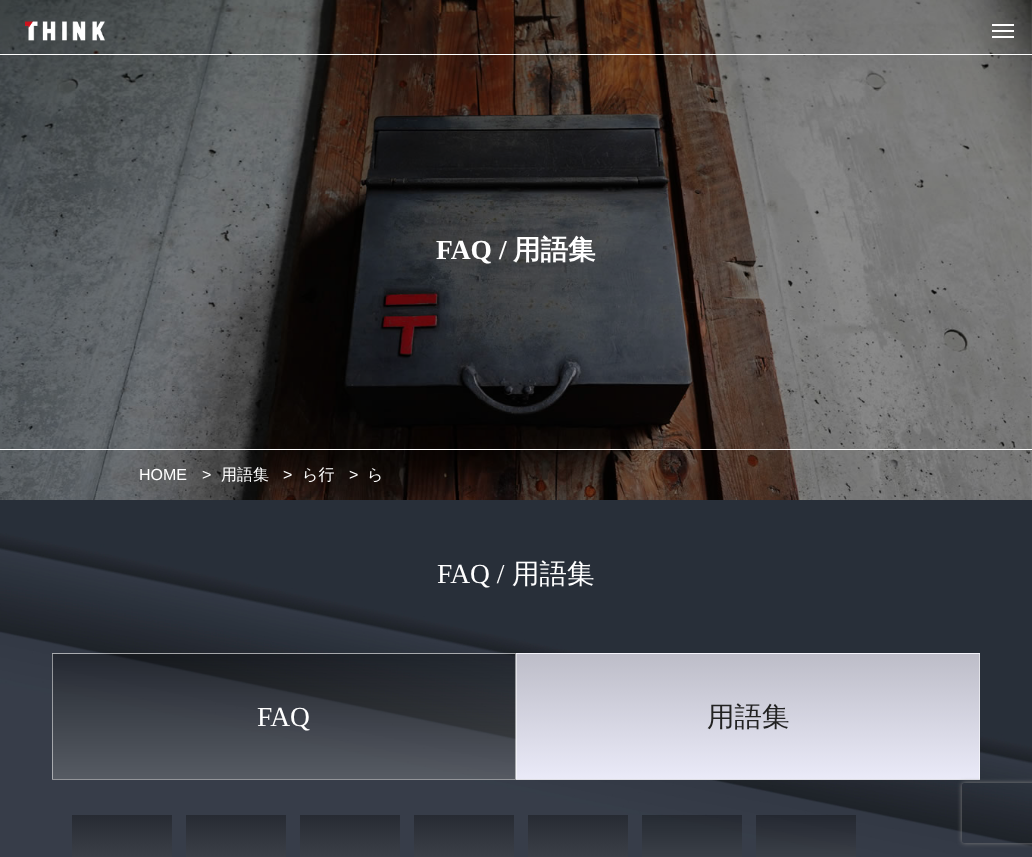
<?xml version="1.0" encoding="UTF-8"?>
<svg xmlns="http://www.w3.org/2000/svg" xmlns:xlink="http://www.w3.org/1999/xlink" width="1032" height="857">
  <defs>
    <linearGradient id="g1" gradientUnits="userSpaceOnUse" x1="284" y1="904" x2="284" y2="779"><stop offset="0" stop-color="#565b63" /><stop offset="1" stop-color="#262b33" /></linearGradient>
    <linearGradient id="g2" gradientUnits="userSpaceOnUse" x1="748" y1="654" x2="748" y2="529"><stop offset="0" stop-color="#eaeaf8" /><stop offset="1" stop-color="#bdbdc8" /></linearGradient>
    <linearGradient id="g3" gradientUnits="userSpaceOnUse" x1="748" y1="779" x2="748" y2="654"><stop offset="0" stop-color="#eaeaf8" /><stop offset="1" stop-color="#bdbdc8" /></linearGradient>
    <linearGradient id="g4" gradientUnits="userSpaceOnUse" x1="748" y1="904" x2="748" y2="779"><stop offset="0" stop-color="#eaeaf8" /><stop offset="1" stop-color="#bdbdc8" /></linearGradient>
    <linearGradient id="g5" gradientUnits="userSpaceOnUse" x1="122" y1="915" x2="122" y2="815"><stop offset="0" stop-color="#575b63" /><stop offset="1" stop-color="#272b33" /></linearGradient>
    <linearGradient id="g6" gradientUnits="userSpaceOnUse" x1="236" y1="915" x2="236" y2="815"><stop offset="0" stop-color="#575b63" /><stop offset="1" stop-color="#272b33" /></linearGradient>
    <linearGradient id="g7" gradientUnits="userSpaceOnUse" x1="350" y1="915" x2="350" y2="815"><stop offset="0" stop-color="#575b63" /><stop offset="1" stop-color="#272b33" /></linearGradient>
    <linearGradient id="g8" gradientUnits="userSpaceOnUse" x1="464" y1="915" x2="464" y2="815"><stop offset="0" stop-color="#575b63" /><stop offset="1" stop-color="#272b33" /></linearGradient>
    <linearGradient id="g9" gradientUnits="userSpaceOnUse" x1="578" y1="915" x2="578" y2="815"><stop offset="0" stop-color="#575b63" /><stop offset="1" stop-color="#272b33" /></linearGradient>
    <clipPath id="clip1"><path d="M 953 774 h 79 v 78 h -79 z m 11 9 h 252 c 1 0 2 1 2 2 v 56 c 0 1 -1 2 -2 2 h -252 c -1 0 -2 -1 -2 -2 v -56 c 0 -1 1 -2 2 -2 z" clip-rule="evenodd" /></clipPath>
  </defs>
  <rect width="100%" height="100%" fill="#ffffff" />
  <image x="0" y="0" width="1032" height="500" xlink:href="image2.png" />
  <image x="25" y="21" width="80" height="20" xlink:href="image1.png" />
  <rect x="992" y="24" width="22" height="2" fill="#ffffff" />
  <rect x="992" y="30" width="22" height="2" fill="#ffffff" />
  <rect x="992" y="36" width="22" height="2" fill="#ffffff" />
  <rect y="54" width="1032" height="1" fill="#ffffff" />
  <rect y="449" width="1032" height="1" fill="#ffffff" />
  <image x="0" y="500" width="1032" height="357" xlink:href="image3.png" />
  <rect x="52" y="779" width="464" height="1" fill="url(#g1)" />
  <rect x="52.5" y="653.5" width="463" height="126" fill="none" stroke="#ffffff" stroke-opacity="0.5" />
  <rect x="516" y="653" width="464" height="1" fill="url(#g2)" />
  <rect x="516" y="654" width="464" height="125" fill="url(#g3)" />
  <rect x="516" y="779" width="464" height="1" fill="url(#g4)" />
  <rect x="516.5" y="653.5" width="463" height="126" fill="none" stroke="#ffffff" stroke-opacity="0.5" />
  <rect x="72" y="815" width="100" height="42" fill="url(#g5)" />
  <rect x="186" y="815" width="100" height="42" fill="url(#g6)" />
  <rect x="300" y="815" width="100" height="42" fill="url(#g7)" />
  <rect x="414" y="815" width="100" height="42" fill="url(#g8)" />
  <rect x="528" y="815" width="100" height="42" fill="url(#g9)" />
  <g clip-path="url(#clip1)">
    <rect x="962" y="783" width="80" height="60" rx="2" fill="#808080" filter="blur(2.5px)" />
  </g>
  <text x="436" y="259" style="font-family: Liberation Serif; font-size: 27.5px; font-weight: bold; fill: #ffffff">FAQ /</text>
  <text x="513" y="259" style="font-family: WenQuanYi Zen Hei; font-size: 27.5px; font-weight: bold; fill: #ffffff">用語集</text>
  <text x="139" y="480" style="font-family: Liberation Sans; font-size: 16px; fill: #ffffff">HOME</text>
  <text x="202" y="480" style="font-family: Liberation Sans; font-size: 16px; fill: #ffffff">&gt;</text>
  <text x="221" y="480" style="font-family: WenQuanYi Zen Hei; font-size: 16px; font-weight: 500; fill: #ffffff">用語集</text>
  <text x="283" y="480" style="font-family: Liberation Sans; font-size: 16px; fill: #ffffff">&gt;</text>
  <text x="302" y="480" style="font-family: WenQuanYi Zen Hei; font-size: 16px; font-weight: 500; fill: #ffffff">ら行</text>
  <text x="349" y="480" style="font-family: Liberation Sans; font-size: 16px; fill: #ffffff">&gt;</text>
  <text x="367" y="480" style="font-family: WenQuanYi Zen Hei; font-size: 16px; font-weight: 500; fill: #ffffff">ら</text>
  <text x="437" y="583" style="font-family: Liberation Serif; font-size: 27.5px; fill: #ffffff">FAQ /</text>
  <text x="512" y="583" style="font-family: WenQuanYi Zen Hei; font-size: 27.5px; font-weight: 500; fill: #ffffff">用語集</text>
  <text x="257" y="726" style="font-family: Liberation Serif; font-size: 27.5px; fill: #ffffff">FAQ</text>
  <text x="707" y="726" style="font-family: WenQuanYi Zen Hei; font-size: 27.5px; font-weight: 500; fill: #222222">用語集</text>
</svg>
